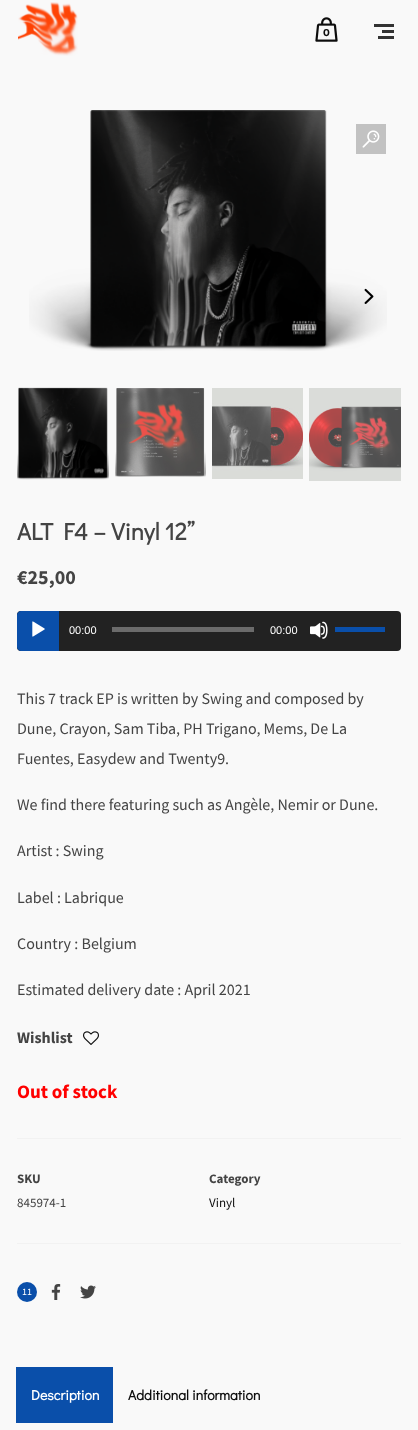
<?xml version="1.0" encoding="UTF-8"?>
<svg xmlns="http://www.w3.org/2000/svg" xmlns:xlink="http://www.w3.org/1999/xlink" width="418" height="1430">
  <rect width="100%" height="100%" fill="#f9f9f9" />
  <image x="18" y="2" width="60" height="54" xlink:href="image1.png" />
  <image x="315" y="17" width="23" height="25" xlink:href="image2.png" />
  <rect x="374" y="24" width="20" height="3" fill="#333333" />
  <rect x="382" y="30" width="12" height="3" fill="#333333" />
  <rect x="378" y="36" width="16" height="3" fill="#333333" />
  <image x="29" y="110" width="358" height="241" xlink:href="image3.png" />
  <rect x="356" y="124" width="30" height="30" fill="#c2c2c2" />
  <image x="362" y="130" width="18" height="18" xlink:href="image4.png" />
  <image x="364" y="288" width="10" height="16" xlink:href="image5.png" />
  <image x="17" y="387" width="92" height="93" xlink:href="image6.png" />
  <image x="115" y="388" width="91" height="89" xlink:href="image7.png" />
  <image x="212" y="388" width="91" height="91" xlink:href="image8.png" />
  <image x="309" y="388" width="92" height="93" xlink:href="image9.png" />
  <rect x="17" y="611" width="384" height="40" rx="4" fill="#222222" />
  <path d="M 21 611 h 38 v 40 h -38 c -2 0 -4 -2 -4 -4 v -32 c 0 -2 2 -4 4 -4 z" fill="#0a4faa" />
  <image x="32" y="621" width="13" height="16" xlink:href="image10.png" />
  <rect x="112" y="627" width="142" height="5" fill="#6b6b6b" />
  <image x="310" y="621" width="18" height="18" xlink:href="image11.png" />
  <rect x="335" y="627" width="50" height="5" fill="#0a4faa" />
  <image x="83" y="1031" width="16" height="14" xlink:href="image12.png" />
  <rect x="17" y="1138" width="384" height="1" fill="#f2f2f2" />
  <rect x="17" y="1243" width="384" height="1" fill="#f2f2f2" />
  <circle cx="27" cy="1292" r="10" fill="#0a4faa" />
  <image x="51" y="1284" width="10" height="16" xlink:href="image13.png" />
  <image x="80" y="1285" width="16" height="14" xlink:href="image14.png" />
  <rect x="16" y="1367" width="97" height="56" fill="#0a4faa" />
  <text x="323" y="36" style="font-family: Montserrat; font-size: 10px; font-weight: bold; fill: #0d0d0d">0</text>
  <text x="17" y="540" style="font-family: Didact Gothic; font-size: 24px; font-weight: bold; fill: #444444">ALT F4 – Vinyl 12”</text>
  <text x="17" y="584" style="font-family: Source Sans Pro; font-size: 20px; font-weight: bold; fill: #444444">€25,00</text>
  <text x="69" y="634" style="font-family: Liberation Sans; font-size: 11px; fill: #ffffff">00:00</text>
  <text x="270" y="634" style="font-family: Liberation Sans; font-size: 11px; fill: #ffffff">00:00</text>
  <text x="17" y="704" style="font-family: Source Sans Pro; font-size: 16px; fill: #444444">This 7 track EP is written by Swing and composed by</text>
  <text x="17" y="734" style="font-family: Source Sans Pro; font-size: 16px; fill: #444444">Dune, Crayon, Sam Tiba, PH Trigano, Mems, De La</text>
  <text x="17" y="764" style="font-family: Source Sans Pro; font-size: 16px; fill: #444444">Fuentes, Easydew and Twenty9.</text>
  <text x="17" y="810" style="font-family: Source Sans Pro; font-size: 16px; fill: #444444">We find there featuring such as Angèle, Nemir or Dune.</text>
  <text x="17" y="856" style="font-family: Source Sans Pro; font-size: 16px; fill: #444444">Artist : Swing</text>
  <text x="17" y="903" style="font-family: Source Sans Pro; font-size: 16px; fill: #444444">Label : Labrique</text>
  <text x="17" y="949" style="font-family: Source Sans Pro; font-size: 16px; fill: #444444">Country : Belgium</text>
  <text x="17" y="995" style="font-family: Source Sans Pro; font-size: 16px; fill: #444444">Estimated delivery date : April 2021</text>
  <text x="17" y="1043" style="font-family: Source Sans Pro; font-size: 16px; font-weight: bold; fill: #444444">Wishlist</text>
  <text x="17" y="1098" style="font-family: Source Sans Pro; font-size: 19px; font-weight: bold; fill: #ff0000">Out of stock</text>
  <text x="17" y="1183" style="font-family: Source Sans Pro; font-size: 13px; font-weight: bold; fill: #444444">SKU</text>
  <text x="17" y="1207" style="font-family: Source Sans Pro; font-size: 13px; fill: #444444">845974-1</text>
  <text x="209" y="1183" style="font-family: Source Sans Pro; font-size: 13px; font-weight: bold; fill: #444444">Category</text>
  <text x="209" y="1207" style="font-family: Source Sans Pro; font-size: 13px; fill: #0d0d0d">Vinyl</text>
  <text x="22" y="1295" style="font-family: Source Sans Pro; font-size: 10px; fill: #ffffff">11</text>
  <text x="31" y="1400" style="font-family: Didact Gothic; font-size: 14px; font-weight: bold; fill: #ffffff">Description</text>
  <text x="128" y="1400" style="font-family: Didact Gothic; font-size: 14px; font-weight: bold; fill: #0d0d0d">Additional information</text>
</svg>
